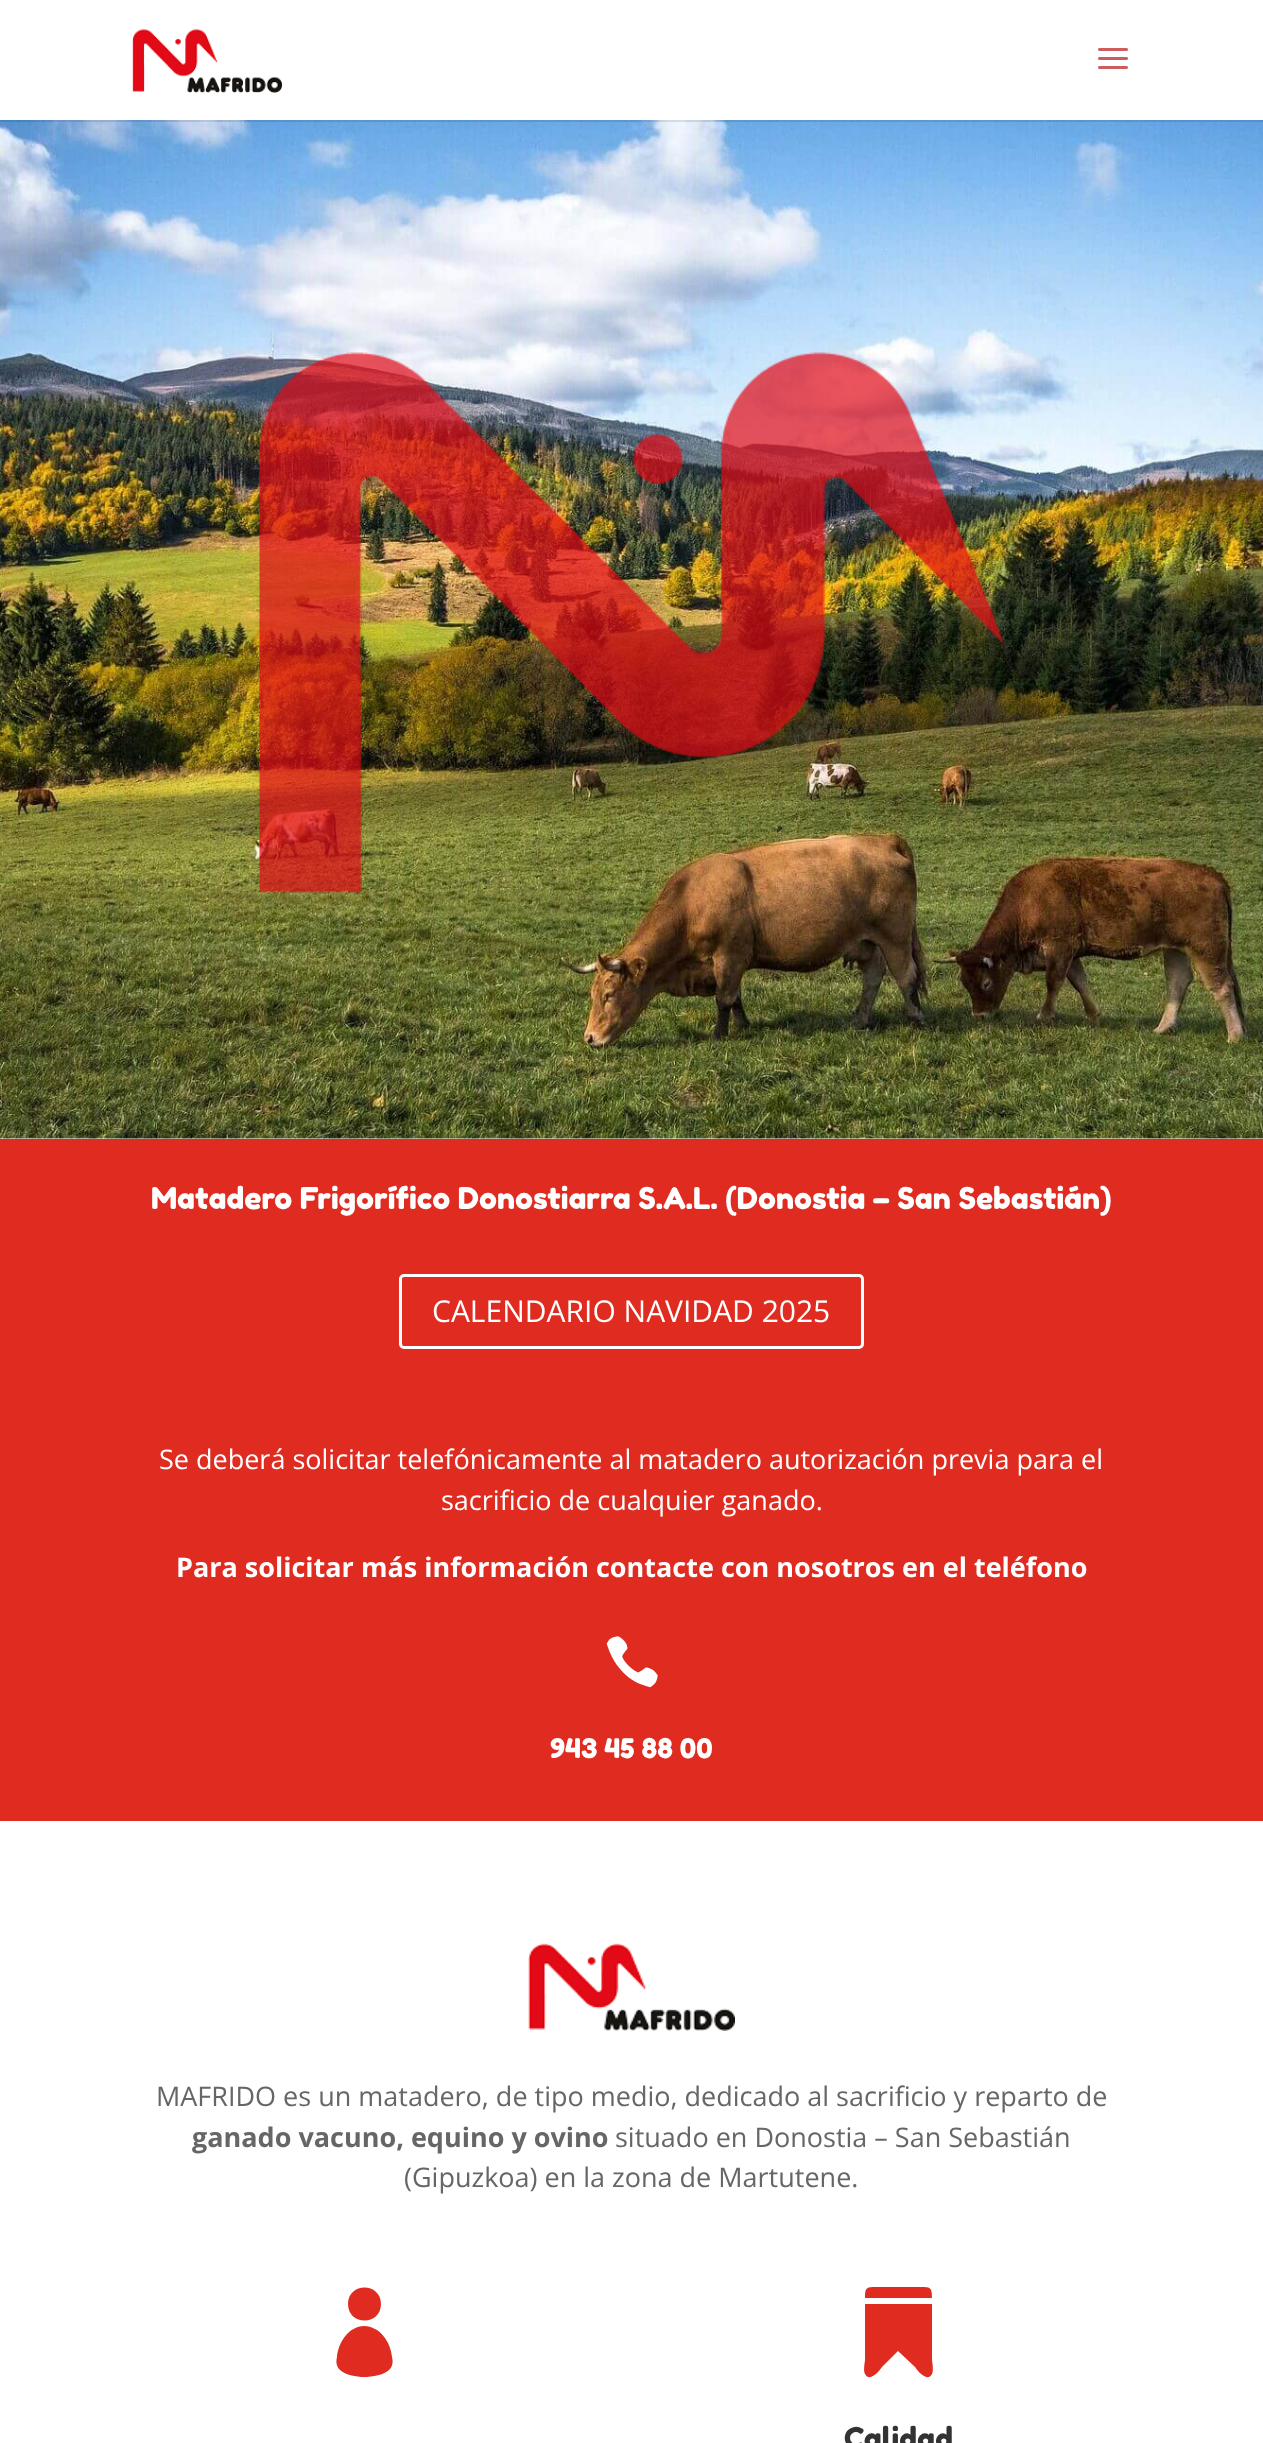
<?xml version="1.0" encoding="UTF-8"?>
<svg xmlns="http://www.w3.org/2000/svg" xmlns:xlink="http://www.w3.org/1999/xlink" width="1263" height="2443">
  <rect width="100%" height="100%" fill="#ffffff" />
  <image x="0" y="120" width="1263" height="1019" xlink:href="image3.png" />
  <rect y="120" width="1263" height="2" fill="#000000" fill-opacity="0.1" />
  <image x="132" y="29" width="150" height="64" xlink:href="image1.png" />
  <image x="1098" y="48" width="30" height="21" xlink:href="image2.png" />
  <image x="259" y="352" width="745" height="541" xlink:href="image4.png" />
  <rect y="1139" width="1263" height="682" fill="#e02b20" />
  <rect x="400.5" y="1275.5" width="462" height="72" rx="3.5" fill="none" stroke="#ffffff" stroke-width="3" />
  <image x="606" y="1636" width="52" height="52" xlink:href="image5.png" />
  <image x="528" y="1943" width="207" height="88" xlink:href="image6.png" />
  <path d="M 381 2304 c 0 -22 -33 -22 -33 0 c 0 22 33 22 33 0 z m -17 22 c -15 0 -26 17 -27 31 c -1 4 -1 8 2 12 c 5 6 18 8 25 8 c 8 0 21 -2 26 -8 c 3 -4 3 -8 2 -12 c -1 -14 -12 -31 -28 -31 z" fill="#e02b20" />
  <path d="M 865 2304 v 56 c 0 1 -2 11 0 14 c 5 9 15 -4 17 -7 l 16 -16 l 17 16 c 2 3 12 16 17 7 c 2 -3 0 -13 0 -14 v -56 z m 67 -6 c 0 -12 -2 -11 -15 -11 h -37 c -13 0 -15 -1 -15 11 z" fill="#e02b20" />
  <text x="151" y="1209" style="font-family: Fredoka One; font-size: 30px; fill: #ffffff">Matadero Frigorífico Donostiarra S.A.L. (Donostia – San Sebastián)</text>
  <text x="432" y="1322" style="font-family: Open Sans; font-size: 30px; fill: #ffffff">CALENDARIO NAVIDAD 2025</text>
  <text x="159" y="1469" style="font-family: Open Sans; font-size: 27px; fill: #ffffff">Se deberá solicitar telefónicamente al matadero autorización previa para el</text>
  <text x="441" y="1510" style="font-family: Open Sans; font-size: 27px; fill: #ffffff">sacrificio de cualquier ganado.</text>
  <text x="176" y="1577" style="font-family: Open Sans; font-size: 27px; font-weight: bold; fill: #ffffff">Para solicitar más información contacte con nosotros en el teléfono</text>
  <text x="550" y="1758" style="font-family: Fredoka One; font-size: 27px; fill: #ffffff">943 45 88 00</text>
  <text x="156" y="2106" style="font-family: Open Sans; font-size: 27px; fill: #666666">MAFRIDO es un matadero, de tipo medio, dedicado al sacrificio y reparto de</text>
  <text x="192" y="2147" style="font-family: Open Sans; font-size: 27px; font-weight: bold; fill: #666666">ganado vacuno, equino y ovino</text>
  <text x="615" y="2147" style="font-family: Open Sans; font-size: 27px; fill: #666666">situado en Donostia – San Sebastián</text>
  <text x="404" y="2187" style="font-family: Open Sans; font-size: 27px; fill: #666666">(Gipuzkoa) en la zona de Martutene.</text>
  <text x="844" y="2449" style="font-family: Fredoka One; font-size: 30px; fill: #333333">Calidad</text>
</svg>
